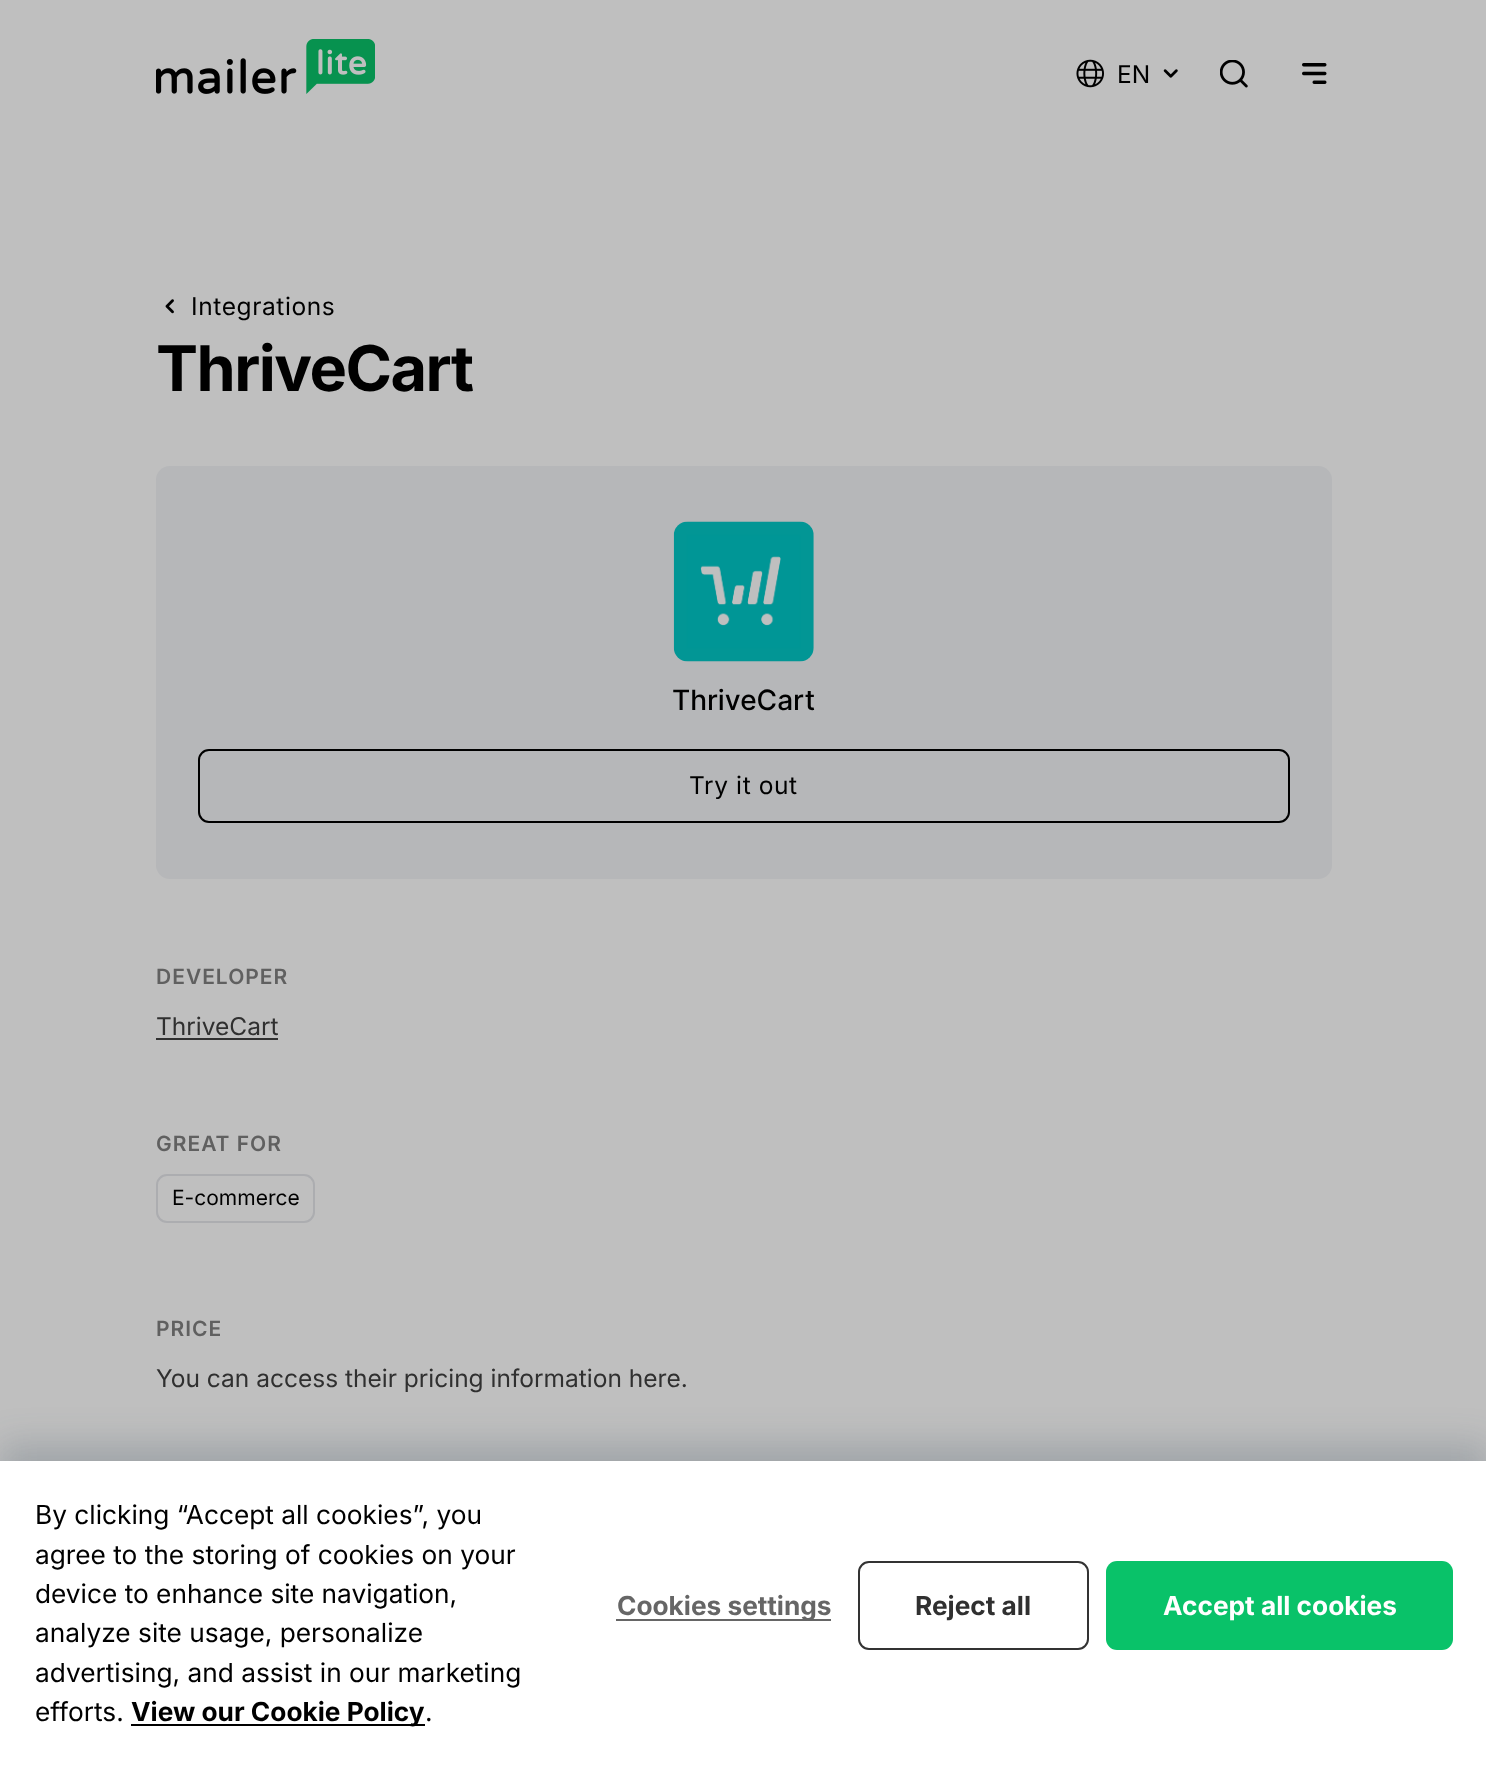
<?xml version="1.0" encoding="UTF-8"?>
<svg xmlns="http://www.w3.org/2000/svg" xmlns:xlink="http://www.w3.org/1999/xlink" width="1486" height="1767">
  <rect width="100%" height="100%" fill="#bfbfbf" />
  <image x="156" y="39" width="219" height="55" xlink:href="image1.png" />
  <image x="1076" y="59" width="28" height="29" xlink:href="image2.png" />
  <image x="1163" y="69" width="15" height="9" xlink:href="image3.png" />
  <image x="1220" y="60" width="28" height="28" xlink:href="image4.png" />
  <image x="1302" y="63" width="25" height="21" xlink:href="image5.png" />
  <image x="165" y="299" width="9" height="15" xlink:href="image6.png" />
  <rect x="156" y="466" width="1176" height="413" rx="14" fill="#b6b7b9" />
  <image x="673" y="521" width="141" height="141" xlink:href="image7.png" />
  <rect x="199" y="750" width="1090" height="72" rx="10" fill="none" stroke="#000000" stroke-width="2" />
  <rect x="156" y="1038" width="122" height="2" fill="#303030" />
  <rect x="157" y="1175" width="157" height="47" rx="10" fill="none" stroke="#acadb0" stroke-width="2" />
  <rect y="1444" width="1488" height="306" fill="#223c50" fill-opacity="0.2" filter="blur(17.5px)" />
  <rect y="1461" width="1486" height="306" fill="#ffffff" />
  <rect x="131" y="1724" width="294" height="2" fill="#000000" />
  <rect x="616" y="1619" width="215" height="2" fill="#666666" />
  <rect x="859" y="1562" width="229" height="87" rx="10" fill="none" stroke="#333333" stroke-width="2" />
  <rect x="1106" y="1561" width="347" height="89" rx="11" fill="#09c269" />
  <text x="1117" y="83" style="font-family: Inter; font-size: 24.5px; fill: #000000">EN</text>
  <text x="191" y="315" style="font-family: Inter; font-size: 24.5px; letter-spacing: 0.6px; fill: #000000">Integrations</text>
  <text x="156" y="391" style="font-family: Inter; font-size: 63px; font-weight: bold; letter-spacing: -1.5px; fill: #000000">ThriveCart</text>
  <text x="672" y="710" style="font-family: Inter; font-size: 28px; font-weight: 500; fill: #000000">ThriveCart</text>
  <text x="689" y="794" style="font-family: Inter; font-size: 24.5px; letter-spacing: 0.6px; fill: #000000">Try it out</text>
  <text x="156" y="984" style="font-family: Inter; font-size: 21px; font-weight: 600; letter-spacing: 1px; fill: #606060">DEVELOPER</text>
  <text x="156" y="1035" style="font-family: Inter; font-size: 24.5px; fill: #303030">ThriveCart</text>
  <text x="156" y="1151" style="font-family: Inter; font-size: 21px; font-weight: 600; letter-spacing: 1px; fill: #606060">GREAT FOR</text>
  <text x="172" y="1205" style="font-family: Inter; font-size: 21px; fill: #000000">E-commerce</text>
  <text x="156" y="1336" style="font-family: Inter; font-size: 21px; font-weight: 600; letter-spacing: 1px; fill: #606060">PRICE</text>
  <text x="156" y="1387" style="font-family: Inter; font-size: 24.5px; fill: #303030">You can access their pricing information here.</text>
  <text x="35" y="1524" style="font-family: Inter; font-size: 26.25px; fill: #000000">By clicking “Accept all cookies”, you</text>
  <text x="35" y="1564" style="font-family: Inter; font-size: 26.25px; fill: #000000">agree to the storing of cookies on your</text>
  <text x="35" y="1603" style="font-family: Inter; font-size: 26.25px; fill: #000000">device to enhance site navigation,</text>
  <text x="35" y="1642" style="font-family: Inter; font-size: 26.25px; fill: #000000">analyze site usage, personalize</text>
  <text x="35" y="1682" style="font-family: Inter; font-size: 26.25px; fill: #000000">advertising, and assist in our marketing</text>
  <text x="35" y="1721" style="font-family: Inter; font-size: 26.25px; fill: #000000">efforts.</text>
  <text x="131" y="1721" style="font-family: Inter; font-size: 26.25px; font-weight: bold; fill: #000000">View our Cookie Policy</text>
  <text x="425" y="1721" style="font-family: Inter; font-size: 26.25px; fill: #000000">.</text>
  <text x="617" y="1615" style="font-family: Inter; font-size: 26.25px; font-weight: bold; fill: #666666">Cookies settings</text>
  <text x="915" y="1615" style="font-family: Inter; font-size: 26.25px; font-weight: bold; fill: #303030">Reject all</text>
  <text x="1163" y="1615" style="font-family: Inter; font-size: 26.25px; font-weight: bold; fill: #ffffff">Accept all cookies</text>
</svg>
